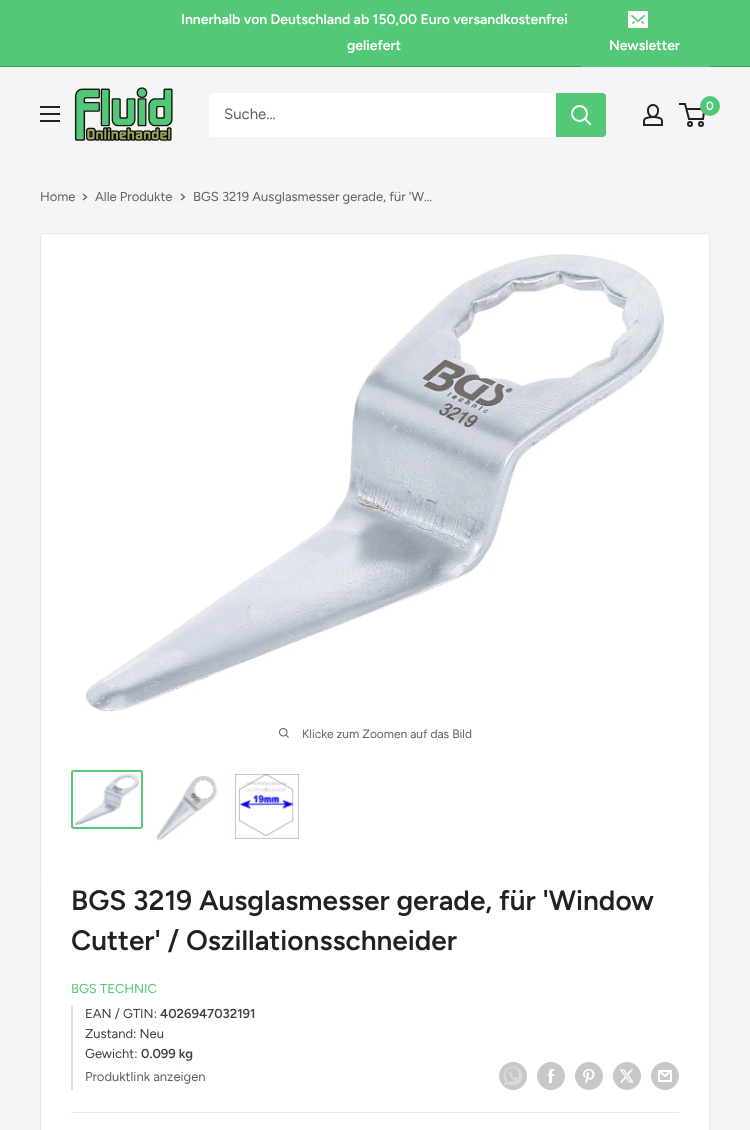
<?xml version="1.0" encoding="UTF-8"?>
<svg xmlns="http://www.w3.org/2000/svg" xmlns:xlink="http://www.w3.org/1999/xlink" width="750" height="1130">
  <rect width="100%" height="100%" fill="#f5f5f5" />
  <rect width="750" height="66" fill="#53c877" />
  <rect y="66" width="750" height="1" fill="#44965d" />
  <rect x="581" y="66" width="129" height="1" fill="#53c877" />
  <image x="628" y="11" width="20" height="17" xlink:href="image1.png" />
  <image x="40" y="106" width="20" height="16" xlink:href="image2.png" />
  <image x="74" y="87" width="99" height="54" xlink:href="image3.png" />
  <rect x="209" y="93" width="397" height="44" rx="3" fill="#ffffff" />
  <path d="M 556 93 h 47 c 1.5 0 3 1.5 3 3 v 38 c 0 1.5 -1.5 3 -3 3 h -47 z" fill="#53c877" />
  <path d="M 590 124 l -5 -5" fill="none" stroke="#ffffff" stroke-width="2" stroke-linecap="square" />
  <circle cx="579.5" cy="113.5" r="7.5" fill="none" stroke="#ffffff" stroke-width="2" />
  <image x="643" y="104" width="20" height="22" xlink:href="image4.png" />
  <circle cx="690" cy="124" r="2" fill="none" stroke="#222021" stroke-width="2" />
  <circle cx="701" cy="124" r="2" fill="none" stroke="#222021" stroke-width="2" />
  <path d="M 686.5 109 h 18 l -1.5 10 h -14 l -4 -15 h -6" fill="none" stroke="#222021" stroke-width="2" />
  <circle cx="710" cy="106" r="10" fill="#53c877" />
  <path d="M 83.5 194.5 l 3 2.5 l -3 2.5" fill="none" stroke="#616161" stroke-width="1.3" stroke-linecap="square" />
  <path d="M 181.5 194.5 l 3 2.5 l -3 2.5" fill="none" stroke="#616161" stroke-width="1.3" stroke-linecap="square" />
  <rect x="40.5" y="233.5" width="669" height="646" rx="2.5" fill="#ffffff" stroke="#e8e8e8" />
  <image x="86" y="254" width="578" height="457" xlink:href="image5.png" />
  <image x="279" y="728" width="10" height="10" xlink:href="image6.png" />
  <rect x="72" y="771" width="70" height="57" rx="2" fill="none" stroke="#53c877" stroke-width="2" />
  <image x="75" y="774" width="64" height="51" xlink:href="image7.png" />
  <image x="156" y="776" width="62" height="65" xlink:href="image8.png" />
  <image x="235" y="774" width="64" height="65" xlink:href="image9.png" />
  <path d="M 43 879 c -2 0 -3 2 -3 4 c 0 -2 1 -3 3 -3 h 664 c 2 0 3 1 3 3 c 0 -2 -1 -4 -3 -4 z" fill="#ffffff" />
  <rect x="40" y="880" width="670" height="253" rx="3" fill="#ffffff" />
  <path d="M 43 880 h 664 c 2 0 3 1 3 3 v 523 c 0 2 -1 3 -3 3 h -664 c -2 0 -3 -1 -3 -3 v -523 c 0 -2 1 -3 3 -3 z m 0 0 h 664 c 1 0 2 1 2 3 v 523 c 0 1 -1 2 -2 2 h -664 c -1 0 -2 -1 -2 -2 v -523 c 0 -2 1 -3 2 -3 z" fill="#e8e8e8" fill-rule="evenodd" />
  <rect x="71" y="1005" width="2" height="85" fill="#e0e0e0" />
  <image x="499" y="1062" width="28" height="28" xlink:href="image10.png" />
  <image x="537" y="1062" width="28" height="28" xlink:href="image11.png" />
  <image x="575" y="1062" width="28" height="28" xlink:href="image12.png" />
  <image x="613" y="1062" width="28" height="28" xlink:href="image13.png" />
  <image x="651" y="1062" width="28" height="28" xlink:href="image14.png" />
  <rect x="71" y="1112" width="608" height="1" fill="#e8e8e8" />
  <text x="181" y="24" style="font-family: Figtree; font-size: 14px; font-weight: 600; fill: #ffffff">Innerhalb von Deutschland ab 150,00 Euro versandkostenfrei</text>
  <text x="347" y="50" style="font-family: Figtree; font-size: 14px; font-weight: 600; fill: #ffffff">geliefert</text>
  <text x="609" y="50" style="font-family: Figtree; font-size: 14px; font-weight: 600; fill: #ffffff">Newsletter</text>
  <text x="224" y="119" style="font-family: Figtree; font-size: 15px; fill: #616161">Suche...</text>
  <text x="706" y="110" style="font-family: Figtree; font-size: 12px; font-weight: 600; fill: #ffffff">0</text>
  <text x="40" y="201" style="font-family: Figtree; font-size: 13px; fill: #616161">Home</text>
  <text x="95" y="201" style="font-family: Figtree; font-size: 13px; fill: #616161">Alle Produkte</text>
  <text x="193" y="201" style="font-family: Figtree; font-size: 13px; fill: #616161">BGS 3219 Ausglasmesser gerade, für 'W...</text>
  <text x="302" y="738" style="font-family: Figtree; font-size: 12px; fill: #616161">Klicke zum Zoomen auf das Bild</text>
  <text x="71" y="910" style="font-family: Figtree; font-size: 28px; font-weight: 600; fill: #222021">BGS 3219 Ausglasmesser gerade, für 'Window</text>
  <text x="71" y="950" style="font-family: Figtree; font-size: 28px; font-weight: 600; fill: #222021">Cutter' / Oszillationsschneider</text>
  <text x="71" y="993" style="font-family: Figtree; font-size: 13px; fill: #53c877">BGS TECHNIC</text>
  <text x="85" y="1018" style="font-family: Figtree; font-size: 13px; fill: #404040">EAN / GTIN:</text>
  <text x="160" y="1018" style="font-family: Figtree; font-size: 13px; font-weight: 600; fill: #404040">4026947032191</text>
  <text x="85" y="1038" style="font-family: Figtree; font-size: 13px; fill: #404040">Zustand: Neu</text>
  <text x="85" y="1058" style="font-family: Figtree; font-size: 13px; fill: #404040">Gewicht:</text>
  <text x="141" y="1058" style="font-family: Figtree; font-size: 13px; font-weight: 600; fill: #404040">0.099 kg</text>
  <text x="85" y="1081" style="font-family: Figtree; font-size: 13px; fill: #616161">Produktlink anzeigen</text>
</svg>
